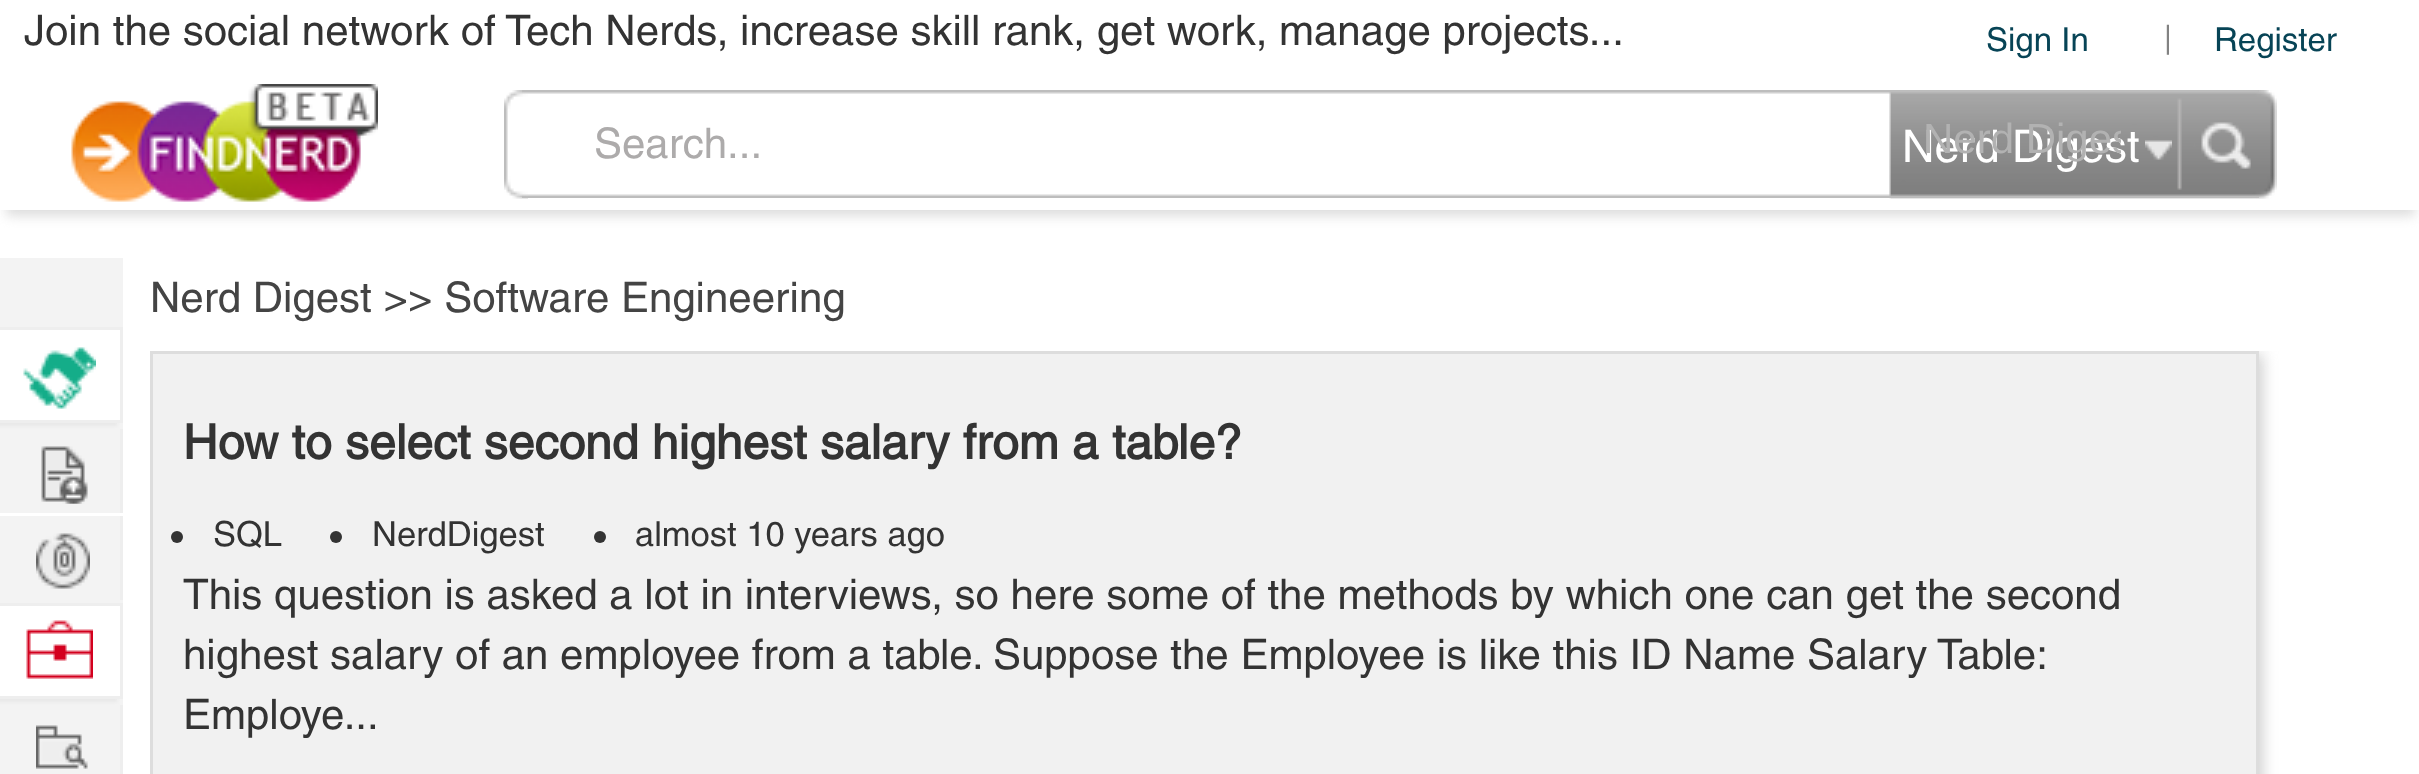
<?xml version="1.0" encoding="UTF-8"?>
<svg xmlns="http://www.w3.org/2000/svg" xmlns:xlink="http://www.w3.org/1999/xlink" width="2419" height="774">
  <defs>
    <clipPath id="clip1"><rect x="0" y="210" width="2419" height="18" /></clipPath>
    <clipPath id="clip2"><rect x="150" y="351" width="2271" height="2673" /></clipPath>
    <clipPath id="clip3"><rect x="1923" y="111" width="198" height="54" /></clipPath>
  </defs>
  <rect width="100%" height="100%" fill="#ffffff" />
  <g clip-path="url(#clip1)">
    <rect x="6" y="18" width="2409" height="198" fill="#dddddd" filter="blur(6px)" />
  </g>
  <image x="71" y="84" width="307" height="118" xlink:href="image1.png" />
  <image x="522" y="90" width="1737" height="108" xlink:href="image3.png" />
  <image x="504" y="90" width="24" height="109" xlink:href="image2.png" />
  <image x="1889" y="90" width="388" height="109" xlink:href="image4.png" />
  <image x="2145" y="140" width="27" height="20" xlink:href="image5.png" />
  <image x="2201" y="122" width="50" height="47" xlink:href="image6.png" />
  <rect y="258" width="123" height="516" fill="#f3f3f3" />
  <rect x="-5" y="330" width="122" height="96" fill="#dddddd" fill-opacity="0.5" filter="blur(1.5px)" />
  <rect y="330" width="120" height="90" fill="#ffffff" />
  <rect y="327" width="123" height="3" fill="#eeeeee" />
  <rect x="120" y="327" width="3" height="96" fill="#eeeeee" />
  <rect y="420" width="123" height="3" fill="#eeeeee" />
  <image x="23" y="347" width="73" height="62" xlink:href="image7.png" />
  <rect x="120" y="429" width="3" height="174" fill="#eeeeee" />
  <rect y="513" width="123" height="3" fill="#ffffff" />
  <image x="41" y="446" width="47" height="58" xlink:href="image8.png" />
  <rect x="120" y="600" width="3" height="3" fill="#f3f3f3" />
  <image x="36" y="533" width="54" height="56" xlink:href="image9.png" />
  <rect x="-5" y="606" width="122" height="96" fill="#dddddd" fill-opacity="0.5" filter="blur(1.5px)" />
  <rect y="606" width="120" height="90" fill="#ffffff" />
  <rect y="603" width="123" height="3" fill="#eeeeee" />
  <rect x="120" y="603" width="3" height="96" fill="#eeeeee" />
  <rect y="696" width="123" height="3" fill="#eeeeee" />
  <image x="26" y="620" width="67" height="59" xlink:href="image10.png" />
  <rect x="120" y="705" width="3" height="69" fill="#eeeeee" />
  <image x="36" y="725" width="52" height="44" xlink:href="image11.png" />
  <g clip-path="url(#clip2)">
    <rect x="153" y="354" width="2109" height="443" fill="#cccccc" filter="blur(7.5px)" />
  </g>
  <rect x="151.5" y="352.5" width="2106" height="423" fill="#f1f1f1" stroke="#dddddd" stroke-width="3" />
  <circle cx="177" cy="537" r="6" fill="#333333" />
  <circle cx="336" cy="537" r="6" fill="#333333" />
  <circle cx="600" cy="537" r="6" fill="#333333" />
  <text x="24" y="45" style="font-family: Helvetica; font-size: 42px; fill: #333333">Join the social network of Tech Nerds, increase skill rank, get work, manage projects...</text>
  <text x="1986" y="51" style="font-family: Helvetica; font-size: 33px; fill: #074456">Sign In</text>
  <text x="2164" y="48" style="font-family: Helvetica; font-size: 30px; fill: #828282">|</text>
  <text x="2214" y="51" style="font-family: Helvetica; font-size: 33px; fill: #074456">Register</text>
  <text x="594" y="158" style="font-family: Helvetica; font-size: 42px; fill: #adabab">Search...</text>
  <text x="1902" y="162" style="font-family: Helvetica; font-size: 45px; fill: #ffffff">Nerd Digest</text>
  <g clip-path="url(#clip3)">
    <text x="1923" y="153" style="font-family: Liberation Sans; font-size: 42px; fill: #b2b2b2">Nerd Diges</text>
  </g>
  <text x="150" y="312" style="font-family: Helvetica; font-size: 42px; fill: #444444">Nerd Digest &gt;&gt; Software Engineering</text>
  <text x="183" y="459" style="font-family: Helvetica; font-size: 48px; font-weight: bold; fill: #333333">How to select second highest salary from a table?</text>
  <text x="213" y="546" style="font-family: Helvetica; font-size: 34.5px; fill: #333333">SQL</text>
  <text x="372" y="546" style="font-family: Helvetica; font-size: 34.5px; fill: #333333">NerdDigest</text>
  <text x="635" y="546" style="font-family: Helvetica; font-size: 34.5px; fill: #333333">almost 10 years ago</text>
  <text x="183" y="609" style="font-family: Helvetica; font-size: 42px; fill: #333333">This question is asked a lot in interviews, so here some of the methods by which one can get the second</text>
  <text x="183" y="669" style="font-family: Helvetica; font-size: 42px; fill: #333333">highest salary of an employee from a table. Suppose the Employee is like this ID Name Salary</text>
  <text x="1937" y="669" style="font-family: Helvetica; font-size: 42px; fill: #333333">Table:</text>
  <text x="183" y="729" style="font-family: Helvetica; font-size: 42px; fill: #333333">Employe...</text>
</svg>
